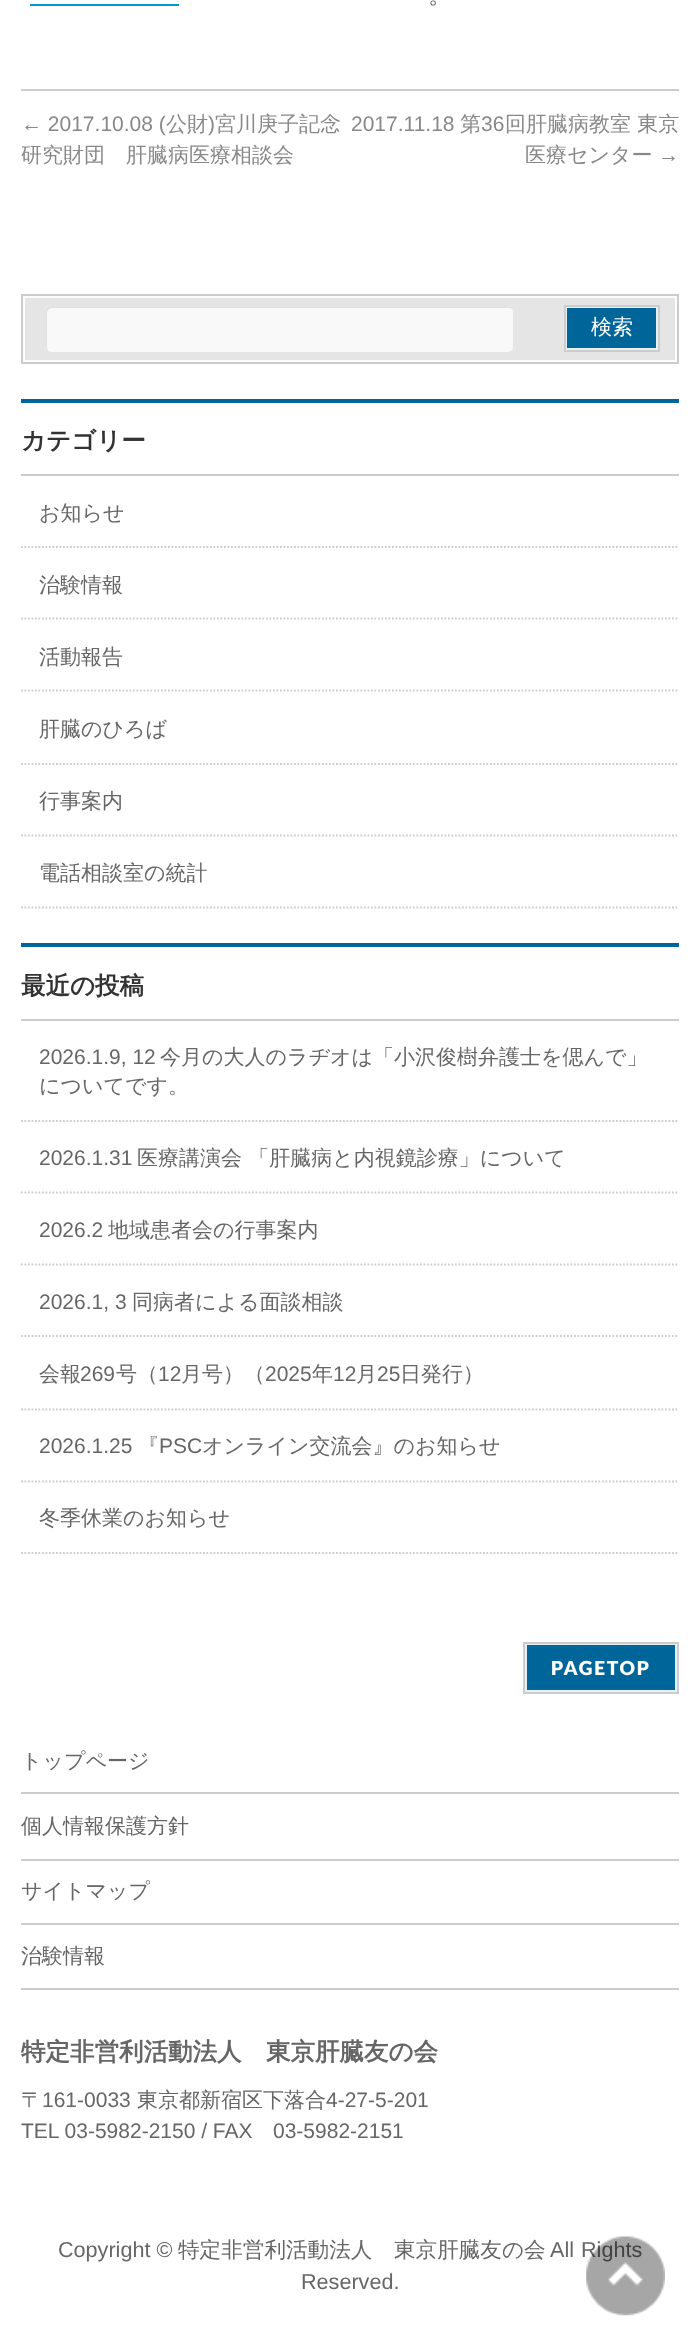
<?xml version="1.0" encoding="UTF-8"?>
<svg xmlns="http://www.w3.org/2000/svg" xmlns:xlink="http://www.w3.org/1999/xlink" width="700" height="2349">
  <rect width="100%" height="100%" fill="#ffffff" />
  <rect x="30" y="4" width="149" height="2" fill="#0099cc" />
  <rect x="21" y="89" width="658" height="2" fill="#cccccc" />
  <rect x="24" y="297" width="652" height="64" fill="#e5e5e5" stroke="#fcfcfc" stroke-width="2" />
  <rect x="22" y="295" width="656" height="68" fill="none" stroke="#cccccc" stroke-width="2" />
  <rect x="44" y="305" width="471" height="49" rx="7" fill="#f9f9f9" />
  <path d="M 52 308 h 457 c 2 0 3 1 4 2 c -1 -3 -3 -4 -5 -4 h -457 c -3 0 -5 2 -5 5 v 36 c 0 2 1 3 2 4 l -1 -3 v -35 c 0 -3 3 -5 5 -5 z" fill="#e0e0e0" />
  <rect x="45" y="306" width="469" height="47" rx="6" fill="none" stroke="#e5e5e5" stroke-width="2" />
  <rect x="566" y="307" width="91" height="42" fill="#006699" stroke="#e6f0f5" stroke-width="2" />
  <rect x="565" y="306" width="94" height="45" fill="none" stroke="#cccccc" stroke-width="2" />
  <rect x="21" y="399" width="658" height="4" fill="#006699" />
  <rect x="21" y="474" width="658" height="2" fill="#cccccc" />
  <path d="M 21 547 h 658" fill="none" stroke="#cccccc" stroke-width="1.8" stroke-dasharray="1.75 1.75" />
  <path d="M 21 618.5 h 658" fill="none" stroke="#cccccc" stroke-width="1.8" stroke-dasharray="1.75 1.75" />
  <path d="M 21 690.5 h 658" fill="none" stroke="#cccccc" stroke-width="1.8" stroke-dasharray="1.75 1.75" />
  <path d="M 21 764 h 658" fill="none" stroke="#cccccc" stroke-width="1.8" stroke-dasharray="1.75 1.75" />
  <path d="M 21 835.5 h 658" fill="none" stroke="#cccccc" stroke-width="1.8" stroke-dasharray="1.75 1.75" />
  <path d="M 21 907.5 h 658" fill="none" stroke="#cccccc" stroke-width="1.8" stroke-dasharray="1.75 1.75" />
  <rect x="21" y="943" width="658" height="4" fill="#006699" />
  <rect x="21" y="1019" width="658" height="2" fill="#cccccc" />
  <path d="M 21 1121 h 658" fill="none" stroke="#cccccc" stroke-width="1.8" stroke-dasharray="1.75 1.75" />
  <path d="M 21 1192.5 h 658" fill="none" stroke="#cccccc" stroke-width="1.8" stroke-dasharray="1.75 1.75" />
  <path d="M 21 1264.5 h 658" fill="none" stroke="#cccccc" stroke-width="1.8" stroke-dasharray="1.75 1.75" />
  <path d="M 21 1336 h 658" fill="none" stroke="#cccccc" stroke-width="1.8" stroke-dasharray="1.75 1.75" />
  <path d="M 21 1409.5 h 658" fill="none" stroke="#cccccc" stroke-width="1.8" stroke-dasharray="1.75 1.75" />
  <path d="M 21 1481.5 h 658" fill="none" stroke="#cccccc" stroke-width="1.8" stroke-dasharray="1.75 1.75" />
  <path d="M 21 1553 h 658" fill="none" stroke="#cccccc" stroke-width="1.8" stroke-dasharray="1.75 1.75" />
  <rect x="526" y="1644" width="150" height="47" fill="#006699" stroke="#e6f0f5" stroke-width="2" />
  <rect x="524" y="1643" width="154" height="50" fill="none" stroke="#cccccc" stroke-width="2" />
  <rect x="21" y="1792" width="658" height="2" fill="#cccccc" />
  <rect x="21" y="1859" width="658" height="2" fill="#cccccc" />
  <rect x="21" y="1923" width="658" height="2" fill="#cccccc" />
  <rect x="21" y="1988" width="658" height="2" fill="#cccccc" />
  <text x="428" y="3" style="font-family: WenQuanYi Zen Hei; font-size: 24.5px; font-weight: 500; fill: #666666">。</text>
  <text x="21" y="131" style="font-family: Liberation Sans; font-size: 21px; fill: #888888">← 2017.10.08 (</text>
  <text x="166" y="131" style="font-family: WenQuanYi Zen Hei; font-size: 21px; font-weight: 500; fill: #888888">公財</text>
  <text x="208" y="131" style="font-family: Liberation Sans; font-size: 21px; fill: #888888">)</text>
  <text x="215" y="131" style="font-family: WenQuanYi Zen Hei; font-size: 21px; font-weight: 500; fill: #888888">宮川庚子記念</text>
  <text x="21" y="162" style="font-family: WenQuanYi Zen Hei; font-size: 21px; font-weight: 500; fill: #888888">研究財団　肝臓病医療相談会</text>
  <text x="351" y="131" style="font-family: Liberation Sans; font-size: 21px; fill: #888888">2017.11.18</text>
  <text x="460" y="131" style="font-family: WenQuanYi Zen Hei; font-size: 21px; font-weight: 500; fill: #888888">第</text>
  <text x="481" y="131" style="font-family: Liberation Sans; font-size: 21px; fill: #888888">36</text>
  <text x="505" y="131" style="font-family: WenQuanYi Zen Hei; font-size: 21px; font-weight: 500; fill: #888888">回肝臓病教室 東京</text>
  <text x="525" y="162" style="font-family: WenQuanYi Zen Hei; font-size: 21px; font-weight: 500; fill: #888888">医療センター</text>
  <text x="658" y="162" style="font-family: Liberation Sans; font-size: 21px; fill: #888888">→</text>
  <text x="591" y="334" style="font-family: WenQuanYi Zen Hei; font-size: 21px; font-weight: 500; fill: #ffffff">検索</text>
  <text x="21" y="449" style="font-family: WenQuanYi Zen Hei; font-size: 24.5px; font-weight: bold; fill: #333333">カテゴリー</text>
  <text x="39" y="520" style="font-family: WenQuanYi Zen Hei; font-size: 21px; font-weight: 500; fill: #666666">お知らせ</text>
  <text x="39" y="592" style="font-family: WenQuanYi Zen Hei; font-size: 21px; font-weight: 500; fill: #666666">治験情報</text>
  <text x="39" y="664" style="font-family: WenQuanYi Zen Hei; font-size: 21px; font-weight: 500; fill: #666666">活動報告</text>
  <text x="39" y="736" style="font-family: WenQuanYi Zen Hei; font-size: 21px; font-weight: 500; fill: #666666">肝臓のひろば</text>
  <text x="39" y="808" style="font-family: WenQuanYi Zen Hei; font-size: 21px; font-weight: 500; fill: #666666">行事案内</text>
  <text x="39" y="880" style="font-family: WenQuanYi Zen Hei; font-size: 21px; font-weight: 500; fill: #666666">電話相談室の統計</text>
  <text x="21" y="994" style="font-family: WenQuanYi Zen Hei; font-size: 24.5px; font-weight: bold; fill: #333333">最近の投稿</text>
  <text x="39" y="1064" style="font-family: Liberation Sans; font-size: 21px; fill: #666666">2026.1.9, 12</text>
  <text x="160" y="1064" style="font-family: WenQuanYi Zen Hei; font-size: 21px; font-weight: 500; fill: #666666">今月の大人のラヂオは「小沢俊樹弁護士を偲んで」</text>
  <text x="39" y="1093" style="font-family: WenQuanYi Zen Hei; font-size: 21px; font-weight: 500; fill: #666666">についてです。</text>
  <text x="39" y="1165" style="font-family: Liberation Sans; font-size: 21px; fill: #666666">2026.1.31</text>
  <text x="137" y="1165" style="font-family: WenQuanYi Zen Hei; font-size: 21px; font-weight: 500; fill: #666666">医療講演会 「肝臓病と内視鏡診療」について</text>
  <text x="39" y="1237" style="font-family: Liberation Sans; font-size: 21px; fill: #666666">2026.2</text>
  <text x="108" y="1237" style="font-family: WenQuanYi Zen Hei; font-size: 21px; font-weight: 500; fill: #666666">地域患者会の行事案内</text>
  <text x="39" y="1309" style="font-family: Liberation Sans; font-size: 21px; fill: #666666">2026.1, 3</text>
  <text x="132" y="1309" style="font-family: WenQuanYi Zen Hei; font-size: 21px; font-weight: 500; fill: #666666">同病者による面談相談</text>
  <text x="39" y="1381" style="font-family: WenQuanYi Zen Hei; font-size: 21px; font-weight: 500; fill: #666666">会報</text>
  <text x="80" y="1381" style="font-family: Liberation Sans; font-size: 21px; fill: #666666">269</text>
  <text x="116" y="1381" style="font-family: WenQuanYi Zen Hei; font-size: 21px; font-weight: 500; fill: #666666">号（</text>
  <text x="158" y="1381" style="font-family: Liberation Sans; font-size: 21px; fill: #666666">12</text>
  <text x="181" y="1381" style="font-family: WenQuanYi Zen Hei; font-size: 21px; font-weight: 500; fill: #666666">月号）（</text>
  <text x="265" y="1381" style="font-family: Liberation Sans; font-size: 21px; fill: #666666">2025</text>
  <text x="312" y="1381" style="font-family: WenQuanYi Zen Hei; font-size: 21px; font-weight: 500; fill: #666666">年</text>
  <text x="333" y="1381" style="font-family: Liberation Sans; font-size: 21px; fill: #666666">12</text>
  <text x="356" y="1381" style="font-family: WenQuanYi Zen Hei; font-size: 21px; font-weight: 500; fill: #666666">月</text>
  <text x="377" y="1381" style="font-family: Liberation Sans; font-size: 21px; fill: #666666">25</text>
  <text x="400" y="1381" style="font-family: WenQuanYi Zen Hei; font-size: 21px; font-weight: 500; fill: #666666">日発行）</text>
  <text x="39" y="1453" style="font-family: Liberation Sans; font-size: 21px; fill: #666666">2026.1.25</text>
  <text x="138" y="1453" style="font-family: WenQuanYi Zen Hei; font-size: 21px; font-weight: 500; fill: #666666">『</text>
  <text x="159" y="1453" style="font-family: Liberation Sans; font-size: 21px; fill: #666666">PSC</text>
  <text x="202" y="1453" style="font-family: WenQuanYi Zen Hei; font-size: 21px; font-weight: 500; fill: #666666">オンライン交流会』のお知らせ</text>
  <text x="39" y="1525" style="font-family: WenQuanYi Zen Hei; font-size: 21px; font-weight: 500; fill: #666666">冬季休業のお知らせ</text>
  <text x="551" y="1675" style="font-family: Lato; font-size: 19.25px; font-weight: 900; letter-spacing: 1.75px; fill: #ffffff">PAGETOP</text>
  <text x="21" y="1768" style="font-family: WenQuanYi Zen Hei; font-size: 21px; font-weight: 500; fill: #666666">トップページ</text>
  <text x="21" y="1833" style="font-family: WenQuanYi Zen Hei; font-size: 21px; font-weight: 500; fill: #666666">個人情報保護方針</text>
  <text x="21" y="1898" style="font-family: WenQuanYi Zen Hei; font-size: 21px; font-weight: 500; fill: #666666">サイトマップ</text>
  <text x="21" y="1963" style="font-family: WenQuanYi Zen Hei; font-size: 21px; font-weight: 500; fill: #666666">治験情報</text>
  <text x="21" y="2060" style="font-family: WenQuanYi Zen Hei; font-size: 24.5px; font-weight: bold; fill: #666666">特定非営利活動法人　東京肝臓友の会</text>
  <text x="21" y="2107" style="font-family: WenQuanYi Zen Hei; font-size: 21px; font-weight: 500; fill: #666666">〒</text>
  <text x="42" y="2107" style="font-family: Liberation Sans; font-size: 21px; fill: #666666">161-0033</text>
  <text x="137" y="2107" style="font-family: WenQuanYi Zen Hei; font-size: 21px; font-weight: 500; fill: #666666">東京都新宿区下落合</text>
  <text x="326" y="2107" style="font-family: Liberation Sans; font-size: 21px; fill: #666666">4-27-5-201</text>
  <text x="21" y="2138" style="font-family: Liberation Sans; font-size: 21px; fill: #666666">TEL 03-5982-2150 / FAX</text>
  <text x="273" y="2138" style="font-family: Liberation Sans; font-size: 21px; fill: #666666">03-5982-2151</text>
  <text x="58" y="2257" style="font-family: Liberation Sans; font-size: 21.6px; fill: #666666">Copyright ©</text>
  <text x="178" y="2257" style="font-family: WenQuanYi Zen Hei; font-size: 21.6px; font-weight: 500; fill: #666666">特定非営利活動法人　東京肝臓友の会</text>
  <text x="550" y="2257" word-spacing="1" style="font-family: Liberation Sans; font-size: 21.6px; fill: #666666">All Rights</text>
  <text x="301" y="2289" style="font-family: Liberation Sans; font-size: 21.6px; fill: #666666">Reserved.</text>
  <image x="586" y="2236" width="79" height="80" xlink:href="image1.png" />
</svg>
